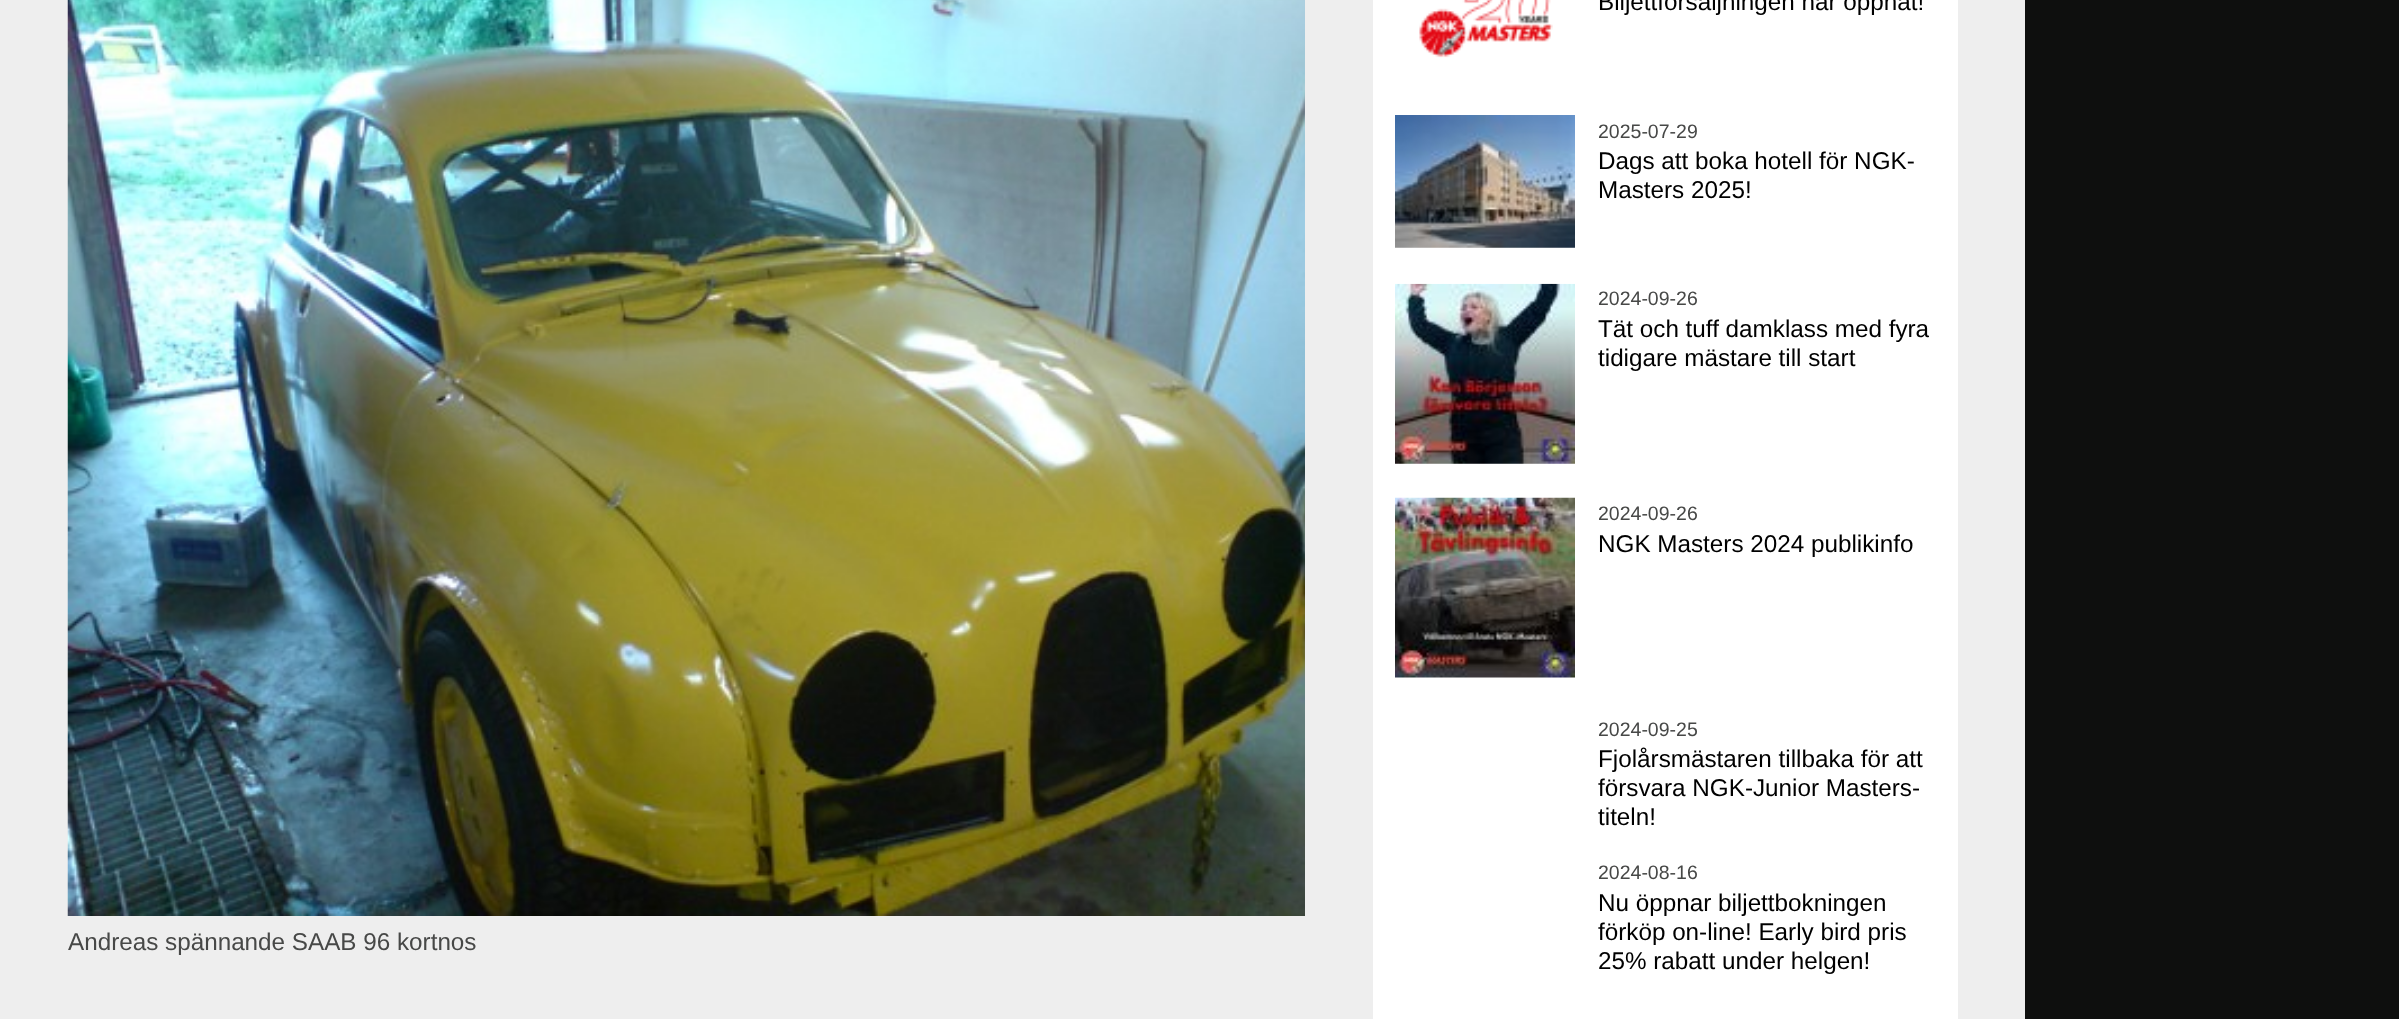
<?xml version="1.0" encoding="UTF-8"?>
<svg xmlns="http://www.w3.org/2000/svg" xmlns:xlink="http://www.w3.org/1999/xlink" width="2399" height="1019">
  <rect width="100%" height="100%" fill="#0e0f0e" />
  <rect width="2025" height="1019" fill="#eeeeee" />
  <image x="67" y="0" width="1238" height="916" xlink:href="image1.png" />
  <rect x="1373" width="585" height="1019" fill="#ffffff" />
  <image x="1419" y="0" width="134" height="58" xlink:href="image2.png" />
  <image x="1395" y="115" width="180" height="133" xlink:href="image3.png" />
  <image x="1395" y="283" width="180" height="181" xlink:href="image4.png" />
  <image x="1395" y="497" width="180" height="181" xlink:href="image5.png" />
  <text x="68" y="950" style="font-family: Liberation Sans; font-size: 24.25px; fill: #474847">Andreas spännande SAAB 96 kortnos</text>
  <text x="1598" y="10" style="font-family: Liberation Sans; font-size: 24.25px; fill: #000000">Biljettförsäljningen har öppnat!</text>
  <text x="1598" y="138" style="font-family: Liberation Sans; font-size: 19.5px; fill: #474847">2025-07-29</text>
  <text x="1598" y="169" style="font-family: Liberation Sans; font-size: 24.25px; fill: #000000">Dags att boka hotell för NGK-</text>
  <text x="1598" y="198" style="font-family: Liberation Sans; font-size: 24.25px; fill: #000000">Masters 2025!</text>
  <text x="1598" y="305" style="font-family: Liberation Sans; font-size: 19.5px; fill: #474847">2024-09-26</text>
  <text x="1598" y="337" style="font-family: Liberation Sans; font-size: 24.25px; fill: #000000">Tät och tuff damklass med fyra</text>
  <text x="1598" y="366" style="font-family: Liberation Sans; font-size: 24.25px; fill: #000000">tidigare mästare till start</text>
  <text x="1598" y="520" style="font-family: Liberation Sans; font-size: 19.5px; fill: #474847">2024-09-26</text>
  <text x="1598" y="552" style="font-family: Liberation Sans; font-size: 24.25px; fill: #000000">NGK Masters 2024 publikinfo</text>
  <text x="1598" y="736" style="font-family: Liberation Sans; font-size: 19.5px; fill: #474847">2024-09-25</text>
  <text x="1598" y="767" style="font-family: Liberation Sans; font-size: 24.25px; fill: #000000">Fjolårsmästaren tillbaka för att</text>
  <text x="1598" y="796" style="font-family: Liberation Sans; font-size: 24.25px; fill: #000000">försvara NGK-Junior Masters-</text>
  <text x="1598" y="825" style="font-family: Liberation Sans; font-size: 24.25px; fill: #000000">titeln!</text>
  <text x="1598" y="879" style="font-family: Liberation Sans; font-size: 19.5px; fill: #474847">2024-08-16</text>
  <text x="1598" y="911" style="font-family: Liberation Sans; font-size: 24.25px; fill: #000000">Nu öppnar biljettbokningen</text>
  <text x="1598" y="940" style="font-family: Liberation Sans; font-size: 24.25px; fill: #000000">förköp on-line! Early bird pris</text>
  <text x="1598" y="969" style="font-family: Liberation Sans; font-size: 24.25px; fill: #000000">25% rabatt under helgen!</text>
</svg>
